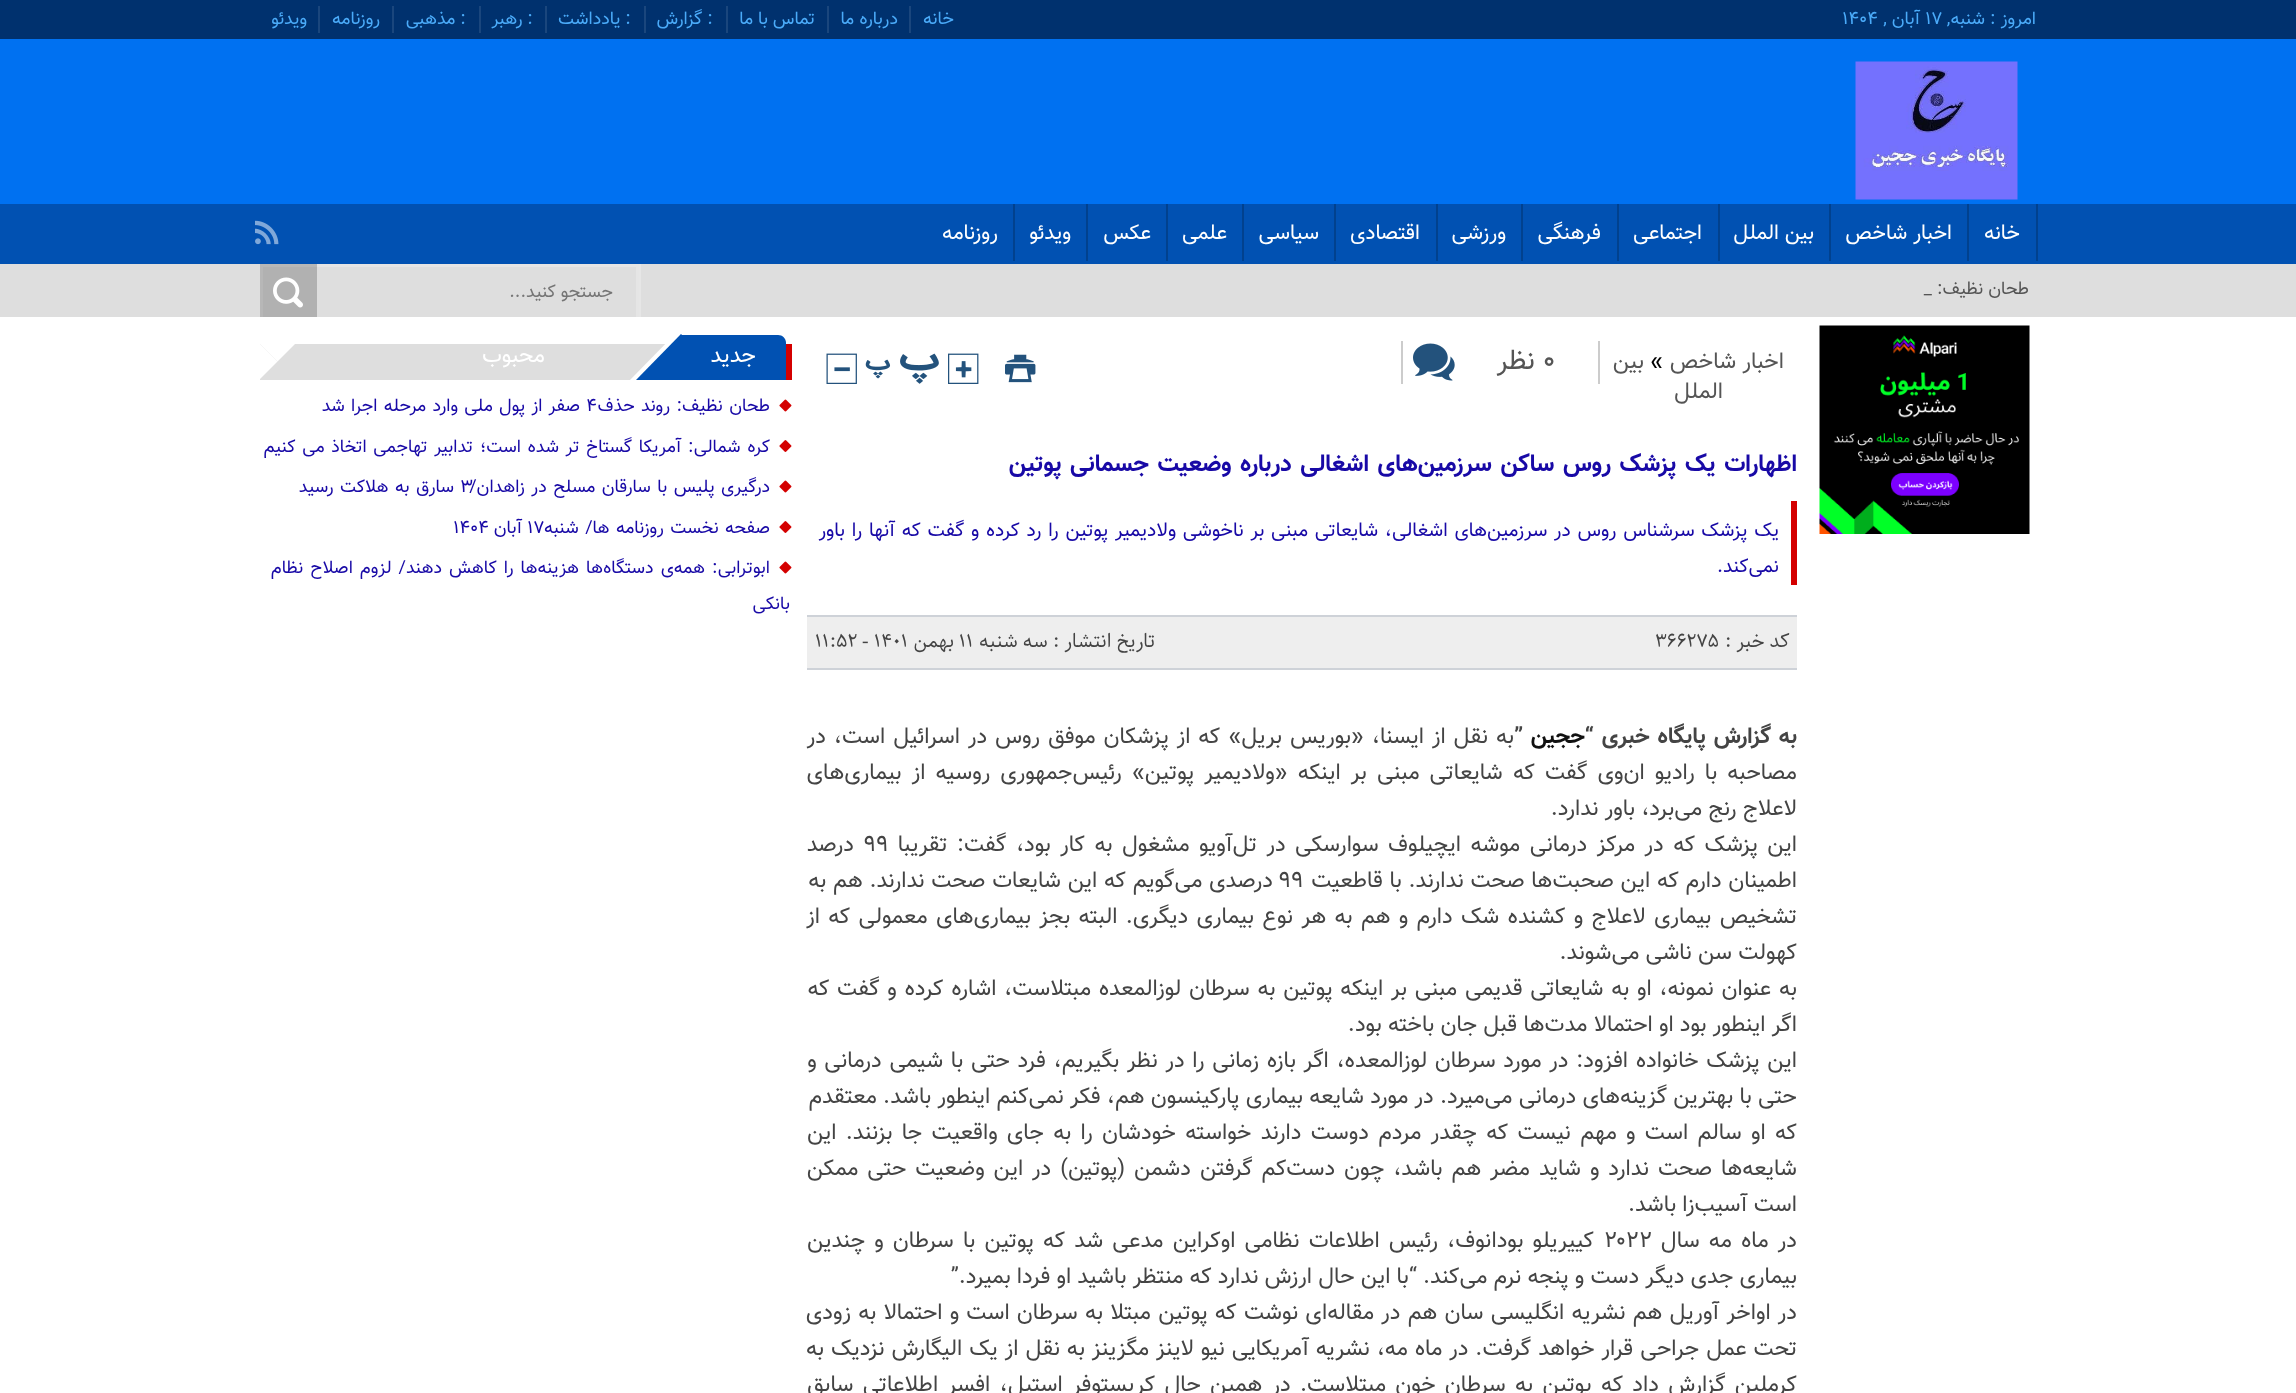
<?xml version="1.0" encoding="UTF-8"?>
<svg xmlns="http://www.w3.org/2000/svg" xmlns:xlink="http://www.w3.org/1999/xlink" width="2296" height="1393">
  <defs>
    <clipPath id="clip1"><rect y="264" width="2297" height="53" /></clipPath>
  </defs>
  <rect width="100%" height="100%" fill="#ffffff" />
  <rect width="2296" height="39" fill="#00316e" />
  <rect x="909" y="6" width="2" height="27" fill="#1a467d" />
  <rect x="827" y="6" width="2" height="27" fill="#1a467d" />
  <rect x="726" y="6" width="2" height="27" fill="#1a467d" />
  <rect x="644" y="6" width="2" height="27" fill="#1a467d" />
  <rect x="545" y="6" width="2" height="27" fill="#1a467d" />
  <rect x="479" y="6" width="2" height="27" fill="#1a467d" />
  <rect x="392" y="6" width="2" height="27" fill="#1a467d" />
  <rect x="318" y="6" width="2" height="27" fill="#1a467d" />
  <rect y="39" width="2296" height="165" fill="#0071f1" />
  <image x="1855" y="61" width="163" height="139" xlink:href="image1.png" />
  <rect y="204" width="2296" height="60" fill="#0151b2" />
  <rect x="2036" y="204" width="2" height="57" fill="#01418e" />
  <rect x="1967" y="204" width="2" height="57" fill="#01418e" />
  <rect x="1829" y="204" width="2" height="57" fill="#01418e" />
  <rect x="1718" y="204" width="2" height="57" fill="#01418e" />
  <rect x="1617" y="204" width="2" height="57" fill="#01418e" />
  <rect x="1521" y="204" width="2" height="57" fill="#01418e" />
  <rect x="1436" y="204" width="2" height="57" fill="#01418e" />
  <rect x="1334" y="204" width="2" height="57" fill="#01418e" />
  <rect x="1242" y="204" width="2" height="57" fill="#01418e" />
  <rect x="1166" y="204" width="2" height="57" fill="#01418e" />
  <rect x="1086" y="204" width="2" height="57" fill="#01418e" />
  <rect x="1013" y="204" width="2" height="57" fill="#01418e" />
  <image x="255" y="220" width="24" height="25" xlink:href="image2.png" />
  <rect y="264" width="2296" height="53" fill="#dedede" />
  <rect x="639" y="264" width="2" height="53" fill="#e6e6e6" />
  <g clip-path="url(#clip1)">
    <rect x="261.5" y="265.5" width="376" height="54" fill="none" stroke="#e5e5e5" stroke-width="3" />
  </g>
  <rect x="260" y="264" width="57" height="53" fill="#000000" fill-opacity="0.2" />
  <image x="273" y="277" width="30" height="31" xlink:href="image3.png" />
  <image x="1819" y="325" width="211" height="209" xlink:href="image4.png" />
  <rect x="1598" y="341" width="2" height="43" fill="#cccccc" />
  <rect x="1401" y="341" width="2" height="43" fill="#cccccc" />
  <image x="1413" y="343" width="42" height="38" xlink:href="image5.png" />
  <image x="1005" y="354" width="31" height="29" xlink:href="image6.png" />
  <image x="948" y="353" width="31" height="31" xlink:href="image7.png" />
  <image x="865" y="353" width="74" height="31" xlink:href="image8.png" />
  <image x="826" y="353" width="31" height="31" xlink:href="image9.png" />
  <rect x="1791" y="501" width="6" height="84" fill="#d40000" />
  <rect x="807" y="617" width="990" height="51" fill="#eeeeee" />
  <rect x="807" y="615" width="990" height="2" fill="#ced2d8" />
  <rect x="807" y="668" width="990" height="2" fill="#ced2d8" />
  <rect x="260" y="344" width="406" height="36" fill="#dedede" />
  <rect x="786" y="344" width="6" height="36" fill="#d40000" />
  <path d="M 720 380 h -90 l 45 -46 z" fill="#ffffff" />
  <path d="M 726 380 h -90 l 45 -46 z" fill="#0151b2" />
  <path d="M 681 335 h 97 c 4.5 0 8 3.5 8 8 v 37 h -105 z" fill="#0151b2" />
  <path d="M 259.5 343.5 h 36 l -18 18 z" fill="#ffffff" />
  <path d="M 259.5 379.5 v -36 l 18 18 z" fill="#ffffff" />
  <image x="779" y="399" width="13" height="13" xlink:href="image10.png" />
  <image x="779" y="440" width="13" height="12" xlink:href="image11.png" />
  <image x="779" y="480" width="13" height="13" xlink:href="image10.png" />
  <image x="779" y="521" width="13" height="12" xlink:href="image11.png" />
  <image x="779" y="561" width="13" height="13" xlink:href="image10.png" />
  <text x="2036" y="24" style="font-family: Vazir; font-size: 18px; direction: rtl; fill: #4aabf9">امروز : شنبه,</text>
  <text x="1925" y="24" style="font-family: Vazir; font-size: 18px; fill: #4aabf9">۱۷</text>
  <text x="1920" y="24" style="font-family: Vazir; font-size: 18px; direction: rtl; fill: #4aabf9">آبان ,</text>
  <text x="1842" y="24" style="font-family: Vazir; font-size: 18px; fill: #4aabf9">۱۴۰۴</text>
  <text x="954" y="24" style="font-family: Vazir; font-size: 18px; direction: rtl; fill: #4aabf9">خانه</text>
  <text x="898" y="24" style="font-family: Vazir; font-size: 18px; direction: rtl; fill: #4aabf9">درباره ما</text>
  <text x="815" y="24" style="font-family: Vazir; font-size: 18px; direction: rtl; fill: #4aabf9">تماس با ما</text>
  <text x="713" y="24" style="font-family: Vazir; font-size: 18px; direction: rtl; fill: #4aabf9">: گزارش</text>
  <text x="631" y="24" style="font-family: Vazir; font-size: 18px; direction: rtl; fill: #4aabf9">: یادداشت</text>
  <text x="533" y="24" style="font-family: Vazir; font-size: 18px; direction: rtl; fill: #4aabf9">: رهبر</text>
  <text x="466" y="24" style="font-family: Vazir; font-size: 18px; direction: rtl; fill: #4aabf9">: مذهبی</text>
  <text x="380" y="24" style="font-family: Vazir; font-size: 18px; direction: rtl; fill: #4aabf9">روزنامه</text>
  <text x="307" y="24" style="font-family: Vazir; font-size: 18px; direction: rtl; fill: #4aabf9">ویدئو</text>
  <text x="2020" y="239" style="font-family: Vazir; font-size: 21px; direction: rtl; fill: #ffffff">خانه</text>
  <text x="1952" y="239" style="font-family: Vazir; font-size: 21px; direction: rtl; fill: #ffffff">اخبار شاخص</text>
  <text x="1814" y="239" style="font-family: Vazir; font-size: 21px; direction: rtl; fill: #ffffff">بین الملل</text>
  <text x="1702" y="239" style="font-family: Vazir; font-size: 21px; direction: rtl; fill: #ffffff">اجتماعی</text>
  <text x="1601" y="239" style="font-family: Vazir; font-size: 21px; direction: rtl; fill: #ffffff">فرهنگی</text>
  <text x="1506" y="239" style="font-family: Vazir; font-size: 21px; direction: rtl; fill: #ffffff">ورزشی</text>
  <text x="1420" y="239" style="font-family: Vazir; font-size: 21px; direction: rtl; fill: #ffffff">اقتصادی</text>
  <text x="1319" y="239" style="font-family: Vazir; font-size: 21px; direction: rtl; fill: #ffffff">سیاسی</text>
  <text x="1227" y="239" style="font-family: Vazir; font-size: 21px; direction: rtl; fill: #ffffff">علمی</text>
  <text x="1151" y="239" style="font-family: Vazir; font-size: 21px; direction: rtl; fill: #ffffff">عکس</text>
  <text x="1071" y="239" style="font-family: Vazir; font-size: 21px; direction: rtl; fill: #ffffff">ویدئو</text>
  <text x="998" y="239" style="font-family: Vazir; font-size: 21px; direction: rtl; fill: #ffffff">روزنامه</text>
  <text x="2029" y="294" style="font-family: Vazir; font-size: 18px; direction: rtl; fill: #555555">طحان نظیف: _</text>
  <text x="613" y="297" style="font-family: Vazir; font-size: 18px; direction: rtl; fill: #757575">جستجو کنید...</text>
  <text x="1784" y="368" style="font-family: Vazir; font-size: 22.5px; direction: rtl; fill: #555555">اخبار شاخص</text>
  <text x="1650" y="368" style="font-family: Vazir; font-size: 22.5px; fill: #000000">«</text>
  <text x="1644" y="368" style="font-family: Vazir; font-size: 22.5px; direction: rtl; fill: #555555">بین</text>
  <text x="1723" y="398" style="font-family: Vazir; font-size: 22.5px; direction: rtl; fill: #555555">الملل</text>
  <text x="1543" y="369" style="font-family: Vazir; font-size: 28px; fill: #555555">۰</text>
  <text x="1535" y="369" style="font-family: Vazir; font-size: 28px; direction: rtl; fill: #555555">نظر</text>
  <text x="1797" y="471" word-spacing="2" style="font-family: Vazir; font-size: 24px; font-weight: bold; letter-spacing: -0.3px; direction: rtl; fill: #1809a6">اظهارات یک پزشک روس ساکن سرزمین‌های اشغالی درباره وضعیت جسمانی پوتین</text>
  <text x="1779" y="536" word-spacing="1.35" style="font-family: Vazir; font-size: 19.5px; direction: rtl; fill: #1809a6">یک پزشک سرشناس روس در سرزمین‌های اشغالی، شایعاتی مبنی بر ناخوشی ولادیمیر پوتین را رد کرده و گفت که آنها را باور</text>
  <text x="1779" y="572" style="font-family: Vazir; font-size: 19.5px; direction: rtl; fill: #1809a6">نمی‌کند.</text>
  <text x="1790" y="647" style="font-family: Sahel; font-size: 19.5px; direction: rtl; fill: #444444">کد خبر :</text>
  <text x="1655" y="647" style="font-family: Sahel; font-size: 19.5px; fill: #444444">366275</text>
  <text x="1155" y="647" style="font-family: Sahel; font-size: 19.5px; direction: rtl; fill: #444444">تاریخ انتشار : سه شنبه</text>
  <text x="959" y="647" style="font-family: Sahel; font-size: 19.5px; fill: #444444">11</text>
  <text x="954" y="647" style="font-family: Sahel; font-size: 19.5px; direction: rtl; fill: #444444">بهمن</text>
  <text x="874" y="647" style="font-family: Sahel; font-size: 19.5px; fill: #444444">1401</text>
  <text x="862" y="647" style="font-family: Liberation Serif; font-size: 19.5px; fill: #444444">-</text>
  <text x="815" y="647" style="font-family: Sahel; font-size: 19.5px; fill: #444444">11:52</text>
  <text x="1797" y="743" word-spacing="1.7" style="font-family: Vazir; font-size: 22.5px; font-weight: bold; direction: rtl; fill: #444444">به گزارش پایگاه خبری “</text>
  <text x="1514" y="743" style="font-family: Vazir; font-size: 22.5px; font-weight: bold; fill: #444444">”</text>
  <text x="1514" y="743" word-spacing="1.7" style="font-family: Vazir; font-size: 22.5px; direction: rtl; fill: #444444">به نقل از ایسنا، «بوریس بریل» که از پزشکان موفق روس در اسرائیل است، در</text>
  <text x="1585" y="743" style="font-family: Vazir; font-size: 22.5px; font-weight: bold; direction: rtl; fill: #111111">ججین</text>
  <text x="1797" y="779" word-spacing="3.9" style="font-family: Vazir; font-size: 22.5px; direction: rtl; fill: #444444">مصاحبه با رادیو ان‌وی گفت که شایعاتی مبنی بر اینکه «ولادیمیر پوتین» رئیس‌جمهوری روسیه از بیماری‌های</text>
  <text x="1797" y="815" style="font-family: Vazir; font-size: 22.5px; direction: rtl; fill: #444444">لاعلاج رنج می‌برد، باور ندارد.</text>
  <text x="1797" y="851" word-spacing="3.25" style="font-family: Vazir; font-size: 22.5px; direction: rtl; fill: #444444">این پزشک که در مرکز درمانی موشه ایچیلوف سوارسکی در تل‌آویو مشغول به کار بود، گفت: تقریبا</text>
  <text x="864" y="851" style="font-family: Vazir; font-size: 22.5px; fill: #444444">۹۹</text>
  <text x="854" y="851" style="font-family: Vazir; font-size: 22.5px; direction: rtl; fill: #444444">درصد</text>
  <text x="1797" y="887" word-spacing="0.5" style="font-family: Vazir; font-size: 22.5px; direction: rtl; fill: #444444">اطمینان دارم که این صحبت‌ها صحت ندارند. با قاطعیت</text>
  <text x="1279" y="887" style="font-family: Vazir; font-size: 22.5px; fill: #444444">۹۹</text>
  <text x="1273" y="887" word-spacing="0.5" style="font-family: Vazir; font-size: 22.5px; direction: rtl; fill: #444444">درصدی می‌گویم که این شایعات صحت ندارند. هم به</text>
  <text x="1797" y="923" word-spacing="2.1" style="font-family: Vazir; font-size: 22.5px; direction: rtl; fill: #444444">تشخیص بیماری لاعلاج و کشنده شک دارم و هم به هر نوع بیماری دیگری. البته بجز بیماری‌های معمولی که از</text>
  <text x="1797" y="959" style="font-family: Vazir; font-size: 22.5px; direction: rtl; fill: #444444">کهولت سن ناشی می‌شوند.</text>
  <text x="1797" y="995" word-spacing="1.5" style="font-family: Vazir; font-size: 22.5px; direction: rtl; fill: #444444">به عنوان نمونه، او به شایعاتی قدیمی مبنی بر اینکه پوتین به سرطان لوزالمعده مبتلاست، اشاره کرده و گفت که</text>
  <text x="1797" y="1031" style="font-family: Vazir; font-size: 22.5px; direction: rtl; fill: #444444">اگر اینطور بود او احتمالا مدت‌ها قبل جان باخته بود.</text>
  <text x="1797" y="1067" word-spacing="1.5" style="font-family: Vazir; font-size: 22.5px; direction: rtl; fill: #444444">این پزشک خانواده افزود: در مورد سرطان لوزالمعده، اگر بازه زمانی را در نظر بگیریم، فرد حتی با شیمی درمانی و</text>
  <text x="1797" y="1103" style="font-family: Vazir; font-size: 22.5px; direction: rtl; fill: #444444">حتی با بهترین گزینه‌های درمانی می‌میرد. در مورد شایعه بیماری پارکینسون هم، فکر نمی‌کنم اینطور باشد. معتقدم</text>
  <text x="1797" y="1139" word-spacing="3.1" style="font-family: Vazir; font-size: 22.5px; direction: rtl; fill: #444444">که او سالم است و مهم نیست که چقدر مردم دوست دارند خواسته خودشان را به جای واقعیت جا بزنند. این</text>
  <text x="1797" y="1175" word-spacing="2.75" style="font-family: Vazir; font-size: 22.5px; direction: rtl; fill: #444444">شایعه‌ها صحت ندارد و شاید مضر هم باشد، چون دست‌کم گرفتن دشمن (پوتین) در این وضعیت حتی ممکن</text>
  <text x="1797" y="1211" style="font-family: Vazir; font-size: 22.5px; direction: rtl; fill: #444444">است آسیب‌زا باشد.</text>
  <text x="1797" y="1247" word-spacing="3" style="font-family: Vazir; font-size: 22.5px; direction: rtl; fill: #444444">در ماه مه سال</text>
  <text x="1604" y="1247" style="font-family: Vazir; font-size: 22.5px; fill: #444444">۲۰۲۲</text>
  <text x="1594" y="1247" word-spacing="3" style="font-family: Vazir; font-size: 22.5px; direction: rtl; fill: #444444">کییریلو بودانوف، رئیس اطلاعات نظامی اوکراین مدعی شد که پوتین با سرطان و چندین</text>
  <text x="1797" y="1283" style="font-family: Vazir; font-size: 22.5px; direction: rtl; fill: #444444">بیماری جدی دیگر دست و پنجه نرم می‌کند. “با این حال ارزش ندارد که منتظر باشید او فردا بمیرد.”</text>
  <text x="1797" y="1319" word-spacing="1" style="font-family: Vazir; font-size: 22.5px; direction: rtl; fill: #444444">در اواخر آوریل هم نشریه انگلیسی سان هم در مقاله‌ای نوشت که پوتین مبتلا به سرطان است و احتمالا به زودی</text>
  <text x="1797" y="1355" word-spacing="0.75" style="font-family: Vazir; font-size: 22.5px; direction: rtl; fill: #444444">تحت عمل جراحی قرار خواهد گرفت. در ماه مه، نشریه آمریکایی نیو لاینز مگزینز به نقل از یک الیگارش نزدیک به</text>
  <text x="1797" y="1391" word-spacing="3.1" style="font-family: Vazir; font-size: 22.5px; direction: rtl; fill: #444444">کرملین گزارش داد که پوتین به سرطان خون مبتلاست. در همین حال کریستوفر استیل، افسر اطلاعاتی سابق</text>
  <text x="756" y="362" style="font-family: Vazir; font-size: 22.5px; direction: rtl; fill: #ffffff">جدید</text>
  <text x="545" y="362" style="font-family: Vazir; font-size: 22.5px; direction: rtl; fill: #ffffff">محبوب</text>
  <text x="770" y="411" word-spacing="1.5" style="font-family: Vazir; font-size: 18px; letter-spacing: -0.3px; direction: rtl; fill: #1809a6">طحان نظیف: روند حذف</text>
  <text x="586" y="411" style="font-family: Vazir; font-size: 18px; letter-spacing: -0.3px; fill: #1809a6">۴</text>
  <text x="580" y="411" word-spacing="1.25" style="font-family: Vazir; font-size: 18px; letter-spacing: -0.3px; direction: rtl; fill: #1809a6">صفر از پول ملی وارد مرحله اجرا شد</text>
  <text x="770" y="452" word-spacing="1.75" style="font-family: Vazir; font-size: 18px; letter-spacing: -0.3px; direction: rtl; fill: #1809a6">کره شمالی: آمریکا گستاخ تر شده است؛ تدابیر تهاجمی اتخاذ می کنیم</text>
  <text x="770" y="492" word-spacing="1.5" style="font-family: Vazir; font-size: 18px; letter-spacing: -0.3px; direction: rtl; fill: #1809a6">درگیری پلیس با سارقان مسلح در زاهدان/</text>
  <text x="460" y="492" style="font-family: Vazir; font-size: 18px; letter-spacing: -0.3px; fill: #1809a6">۳</text>
  <text x="454" y="492" word-spacing="1.5" style="font-family: Vazir; font-size: 18px; letter-spacing: -0.3px; direction: rtl; fill: #1809a6">سارق به هلاکت رسید</text>
  <text x="770" y="533" word-spacing="1.5" style="font-family: Vazir; font-size: 18px; letter-spacing: -0.3px; direction: rtl; fill: #1809a6">صفحه نخست روزنامه ها/ شنبه</text>
  <text x="527" y="533" style="font-family: Vazir; font-size: 18px; letter-spacing: -0.3px; fill: #1809a6">۱۷</text>
  <text x="522" y="533" style="font-family: Vazir; font-size: 18px; letter-spacing: -0.3px; direction: rtl; fill: #1809a6">آبان</text>
  <text x="453" y="533" style="font-family: Vazir; font-size: 18px; letter-spacing: -0.3px; fill: #1809a6">۱۴۰۴</text>
  <text x="770" y="573" word-spacing="2.1" style="font-family: Vazir; font-size: 18px; letter-spacing: -0.3px; direction: rtl; fill: #1809a6">ابوترابی: همه‌ی دستگاه‌ها هزینه‌ها را کاهش دهند/ لزوم اصلاح نظام</text>
  <text x="790" y="609" style="font-family: Vazir; font-size: 18px; letter-spacing: -0.3px; direction: rtl; fill: #1809a6">بانکی</text>
</svg>
